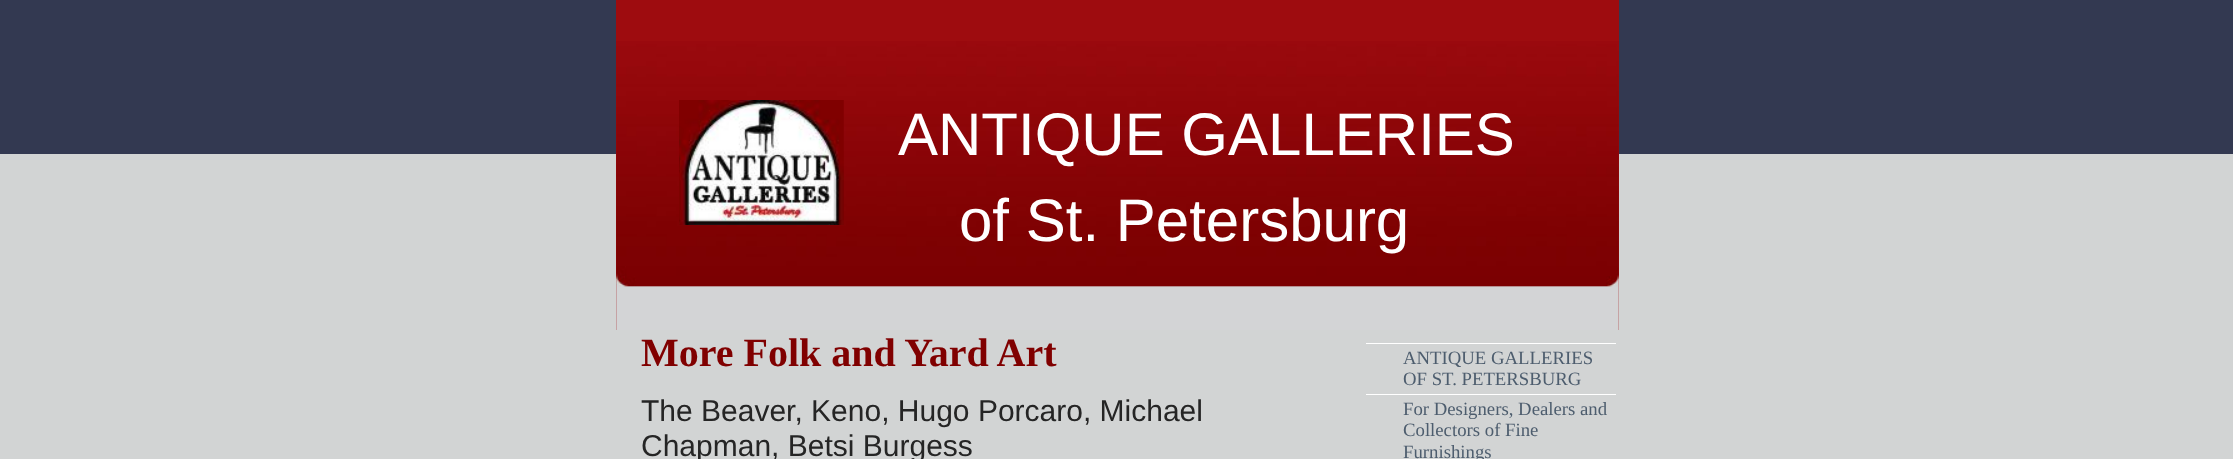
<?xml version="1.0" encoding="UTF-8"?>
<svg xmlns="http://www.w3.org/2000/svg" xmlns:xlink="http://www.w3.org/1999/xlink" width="2233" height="459">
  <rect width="100%" height="100%" fill="#d2d4d4" />
  <rect width="2233" height="154" fill="#333951" />
  <rect x="616" width="1003" height="330" fill="#9e0c0f" />
  <image x="616" y="41" width="1003" height="289" xlink:href="image1.png" />
  <image x="679" y="100" width="165" height="125" xlink:href="image2.png" />
  <rect x="1366" y="343" width="250" height="1" fill="#ffffff" />
  <rect x="1366" y="394" width="250" height="1" fill="#ffffff" />
  <text x="898" y="155" style="font-family: Liberation Sans; font-size: 60px; fill: #ffffff">ANTIQUE GALLERIES</text>
  <text x="959" y="241" style="font-family: Liberation Sans; font-size: 60px; fill: #ffffff">of St. Petersburg</text>
  <text x="641" y="366" style="font-family: Liberation Serif; font-size: 40px; font-weight: bold; fill: #800000">More Folk and Yard Art</text>
  <text x="641" y="421" style="font-family: Liberation Sans; font-size: 30px; fill: #252525">The Beaver, Keno, Hugo Porcaro, Michael</text>
  <text x="641" y="456" style="font-family: Liberation Sans; font-size: 30px; fill: #252525">Chapman, Betsi Burgess</text>
  <text x="1403" y="364" style="font-family: Liberation Serif; font-size: 18.75px; fill: #4d5d6e">ANTIQUE GALLERIES</text>
  <text x="1403" y="385" style="font-family: Liberation Serif; font-size: 18.75px; fill: #4d5d6e">OF ST. PETERSBURG</text>
  <text x="1403" y="415" style="font-family: Liberation Serif; font-size: 18.75px; fill: #4d5d6e">For Designers, Dealers and</text>
  <text x="1403" y="436" style="font-family: Liberation Serif; font-size: 18.75px; fill: #4d5d6e">Collectors of Fine</text>
  <text x="1403" y="458" style="font-family: Liberation Serif; font-size: 18.75px; fill: #4d5d6e">Furnishings</text>
</svg>
